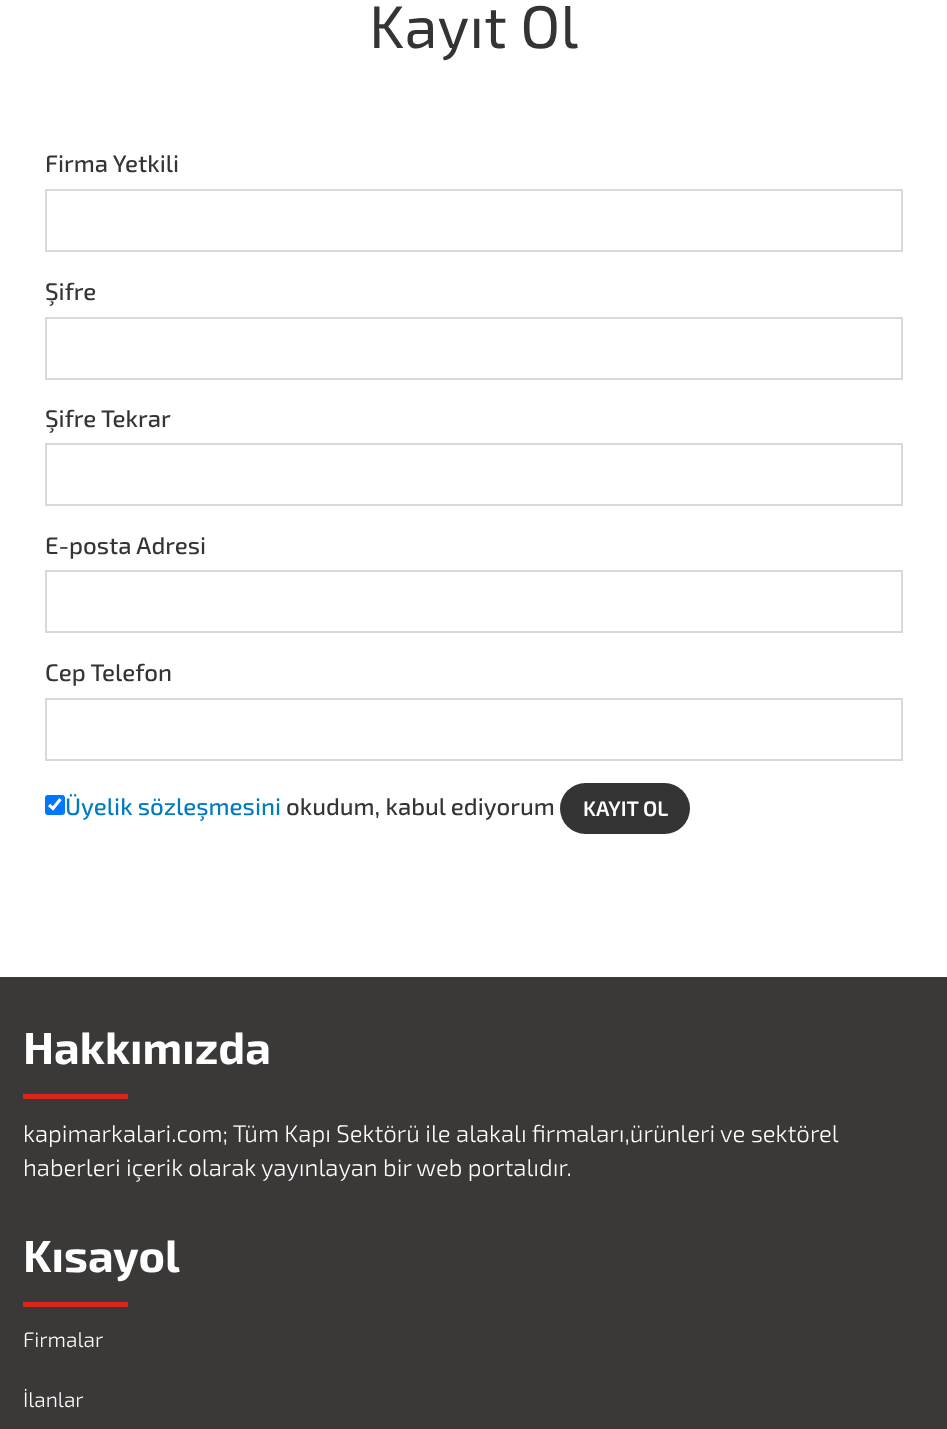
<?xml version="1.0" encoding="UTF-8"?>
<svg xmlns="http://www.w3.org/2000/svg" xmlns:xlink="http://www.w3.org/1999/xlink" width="947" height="1429">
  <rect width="100%" height="100%" fill="#ffffff" />
  <rect x="46" y="190" width="856" height="61" fill="none" stroke="#d9d9d9" stroke-width="2" />
  <rect x="46" y="318" width="856" height="61" fill="none" stroke="#d9d9d9" stroke-width="2" />
  <rect x="46" y="444" width="856" height="61" fill="none" stroke="#d9d9d9" stroke-width="2" />
  <rect x="46" y="571" width="856" height="61" fill="none" stroke="#d9d9d9" stroke-width="2" />
  <rect x="46" y="699" width="856" height="61" fill="none" stroke="#d9d9d9" stroke-width="2" />
  <rect x="45" y="795" width="20" height="20" rx="3" fill="#0075ff" />
  <path d="M 49 805 l 4 3.5 l 7.5 -9.5" fill="none" stroke="#ffffff" stroke-width="3.1" />
  <rect x="560" y="783" width="130" height="51" rx="25.5" fill="#343434" />
  <rect y="977" width="947" height="452" fill="#3b3838" />
  <rect x="23" y="1094" width="105" height="5" fill="#da251c" />
  <rect x="23" y="1302" width="105" height="5" fill="#da251c" />
  <text x="369" y="48" style="font-family: 'Exo 2'; font-size: 60px; fill: #343434">Kayıt Ol</text>
  <text x="45" y="172" style="font-family: 'Exo 2'; font-size: 24px; font-weight: 500; fill: #343434">Firma Yetkili</text>
  <text x="45" y="300" style="font-family: 'Exo 2'; font-size: 24px; font-weight: 500; fill: #343434">Şifre</text>
  <text x="45" y="427" style="font-family: 'Exo 2'; font-size: 24px; font-weight: 500; fill: #343434">Şifre Tekrar</text>
  <text x="45" y="554" style="font-family: 'Exo 2'; font-size: 24px; font-weight: 500; fill: #343434">E-posta Adresi</text>
  <text x="45" y="681" style="font-family: 'Exo 2'; font-size: 24px; font-weight: 500; fill: #343434">Cep Telefon</text>
  <text x="65" y="815" style="font-family: 'Exo 2'; font-size: 24px; font-weight: 500; fill: #007cc2">Üyelik sözleşmesini</text>
  <text x="286" y="815" style="font-family: 'Exo 2'; font-size: 24px; font-weight: 500; fill: #343434">okudum, kabul ediyorum</text>
  <text x="583" y="816" style="font-family: 'Exo 2'; font-size: 21px; font-weight: 600; fill: #ffffff">KAYIT OL</text>
  <text x="23" y="1064" style="font-family: 'Exo 2'; font-size: 45px; font-weight: bold; fill: #ffffff">Hakkımızda</text>
  <text x="23" y="1142" style="font-family: 'Exo 2'; font-size: 24px; font-weight: 300; fill: #ffffff">kapimarkalari.com; Tüm Kapı Sektörü ile alakalı firmaları,ürünleri ve sektörel</text>
  <text x="23" y="1176" style="font-family: 'Exo 2'; font-size: 24px; font-weight: 300; fill: #ffffff">haberleri içerik olarak yayınlayan bir web portalıdır.</text>
  <text x="23" y="1272" style="font-family: 'Exo 2'; font-size: 45px; font-weight: bold; fill: #ffffff">Kısayol</text>
  <text x="23" y="1347" style="font-family: 'Exo 2'; font-size: 21px; font-weight: 300; fill: #ffffff">Firmalar</text>
  <text x="23" y="1407" style="font-family: 'Exo 2'; font-size: 21px; font-weight: 300; fill: #ffffff">İlanlar</text>
</svg>
